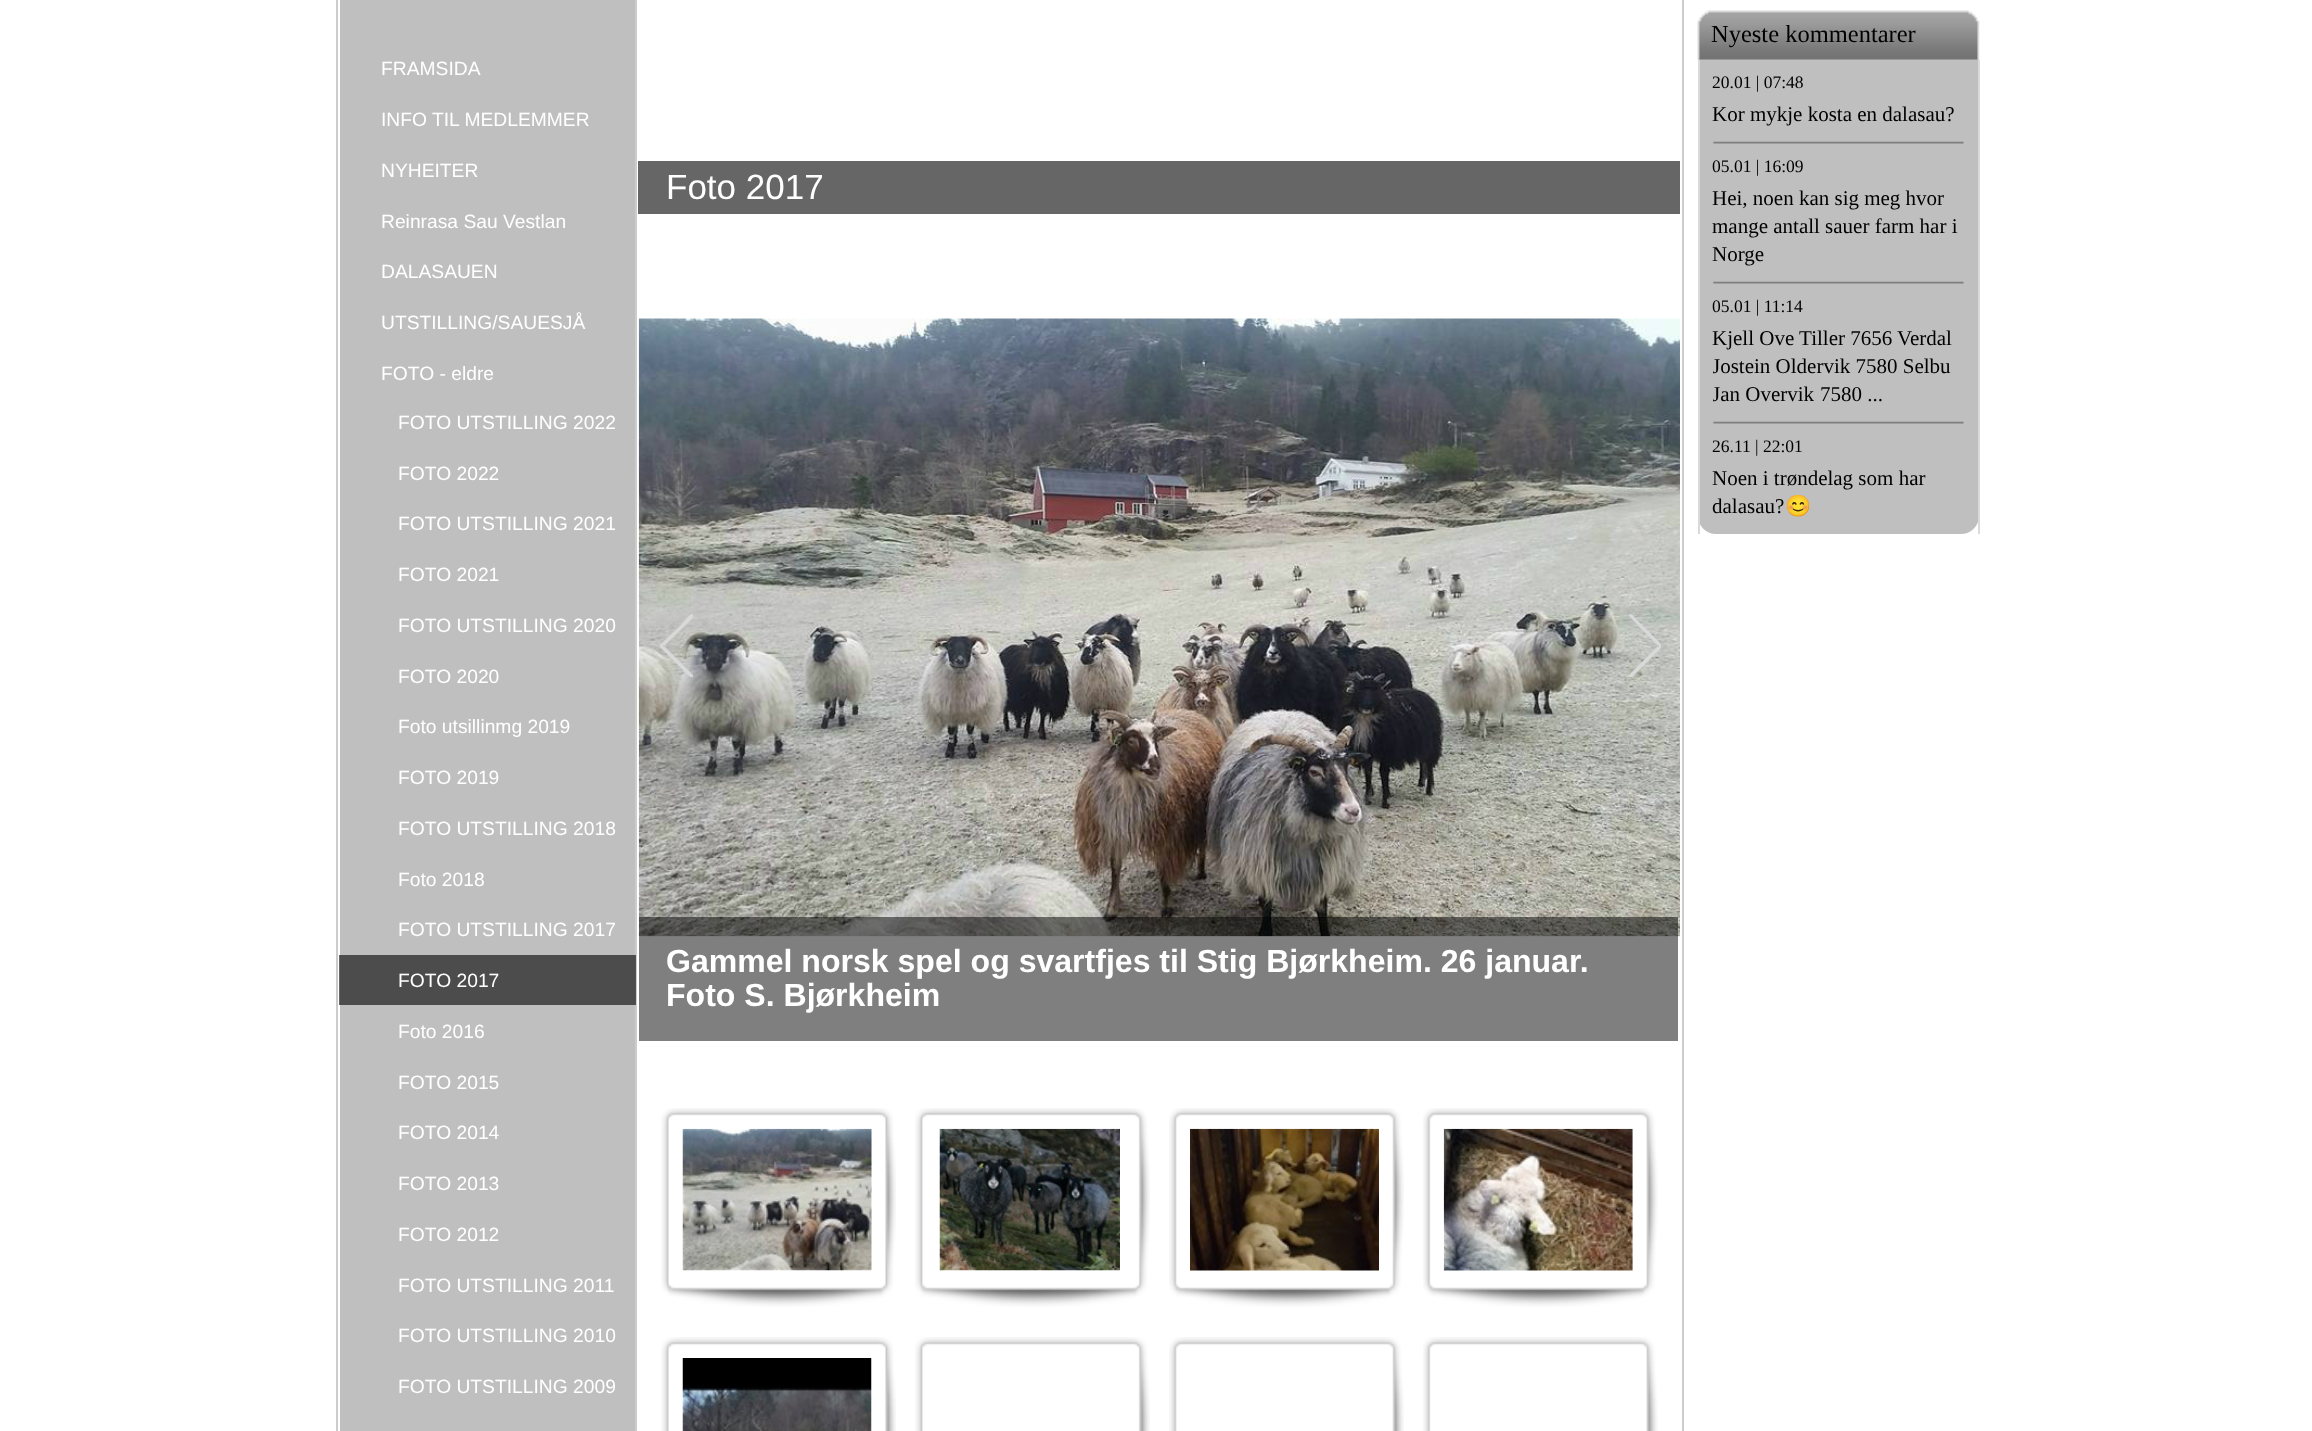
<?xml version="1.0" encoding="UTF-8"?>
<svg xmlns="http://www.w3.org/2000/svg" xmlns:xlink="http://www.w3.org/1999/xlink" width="2312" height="1431">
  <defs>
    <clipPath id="clip1"><rect x="660" y="614" width="33" height="63" /></clipPath>
    <clipPath id="clip2"><rect x="1628" y="614" width="33" height="63" /></clipPath>
    <clipPath id="clip3"><rect x="1713" y="324" width="251" height="84" /></clipPath>
  </defs>
  <rect width="100%" height="100%" fill="#ffffff" />
  <rect x="339" y="955" width="1" height="50" fill="#666666" />
  <rect x="336" width="2" height="1431" fill="#cccccc" />
  <rect x="340" width="295" height="1431" fill="#c0bfbf" />
  <rect x="340" y="955" width="295" height="50" fill="#4d4c4c" />
  <rect x="635" width="2" height="1431" fill="#cccccc" />
  <rect x="635" y="955" width="1" height="50" fill="#525252" />
  <rect x="638" y="161" width="1042" height="53" fill="#666666" />
  <image x="638" y="318" width="1042" height="619" xlink:href="image1.png" />
  <g clip-path="url(#clip1)">
    <path d="M 693 675 l -30 -30 v 2 l 31 -30 v -2 c 0 0 -1 -1 -2 -1 c -2 0 -10 9 -11 11 l -21 20 v 2 l 31 31 c 2 1 4 -1 2 -3 z" fill="#d9d9d9" fill-rule="evenodd" />
  </g>
  <g clip-path="url(#clip2)">
    <path d="M 1631 678 l 26 -26 c 7 -7 7 -5 0 -12 l -20 -20 c -3 -3 -6 -8 -8 -5 v 1 l 30 31 v -2 l -30 30 c -1 2 1 4 2 3 z" fill="#d9d9d9" fill-rule="evenodd" />
  </g>
  <rect x="639" y="917" width="1039" height="124" fill="#000000" fill-opacity="0.5" />
  <image x="661" y="1108" width="235" height="199" xlink:href="image2.png" />
  <image x="682" y="1128" width="190" height="143" xlink:href="image3.png" />
  <image x="915" y="1108" width="235" height="199" xlink:href="image4.png" />
  <image x="939" y="1128" width="181" height="143" xlink:href="image5.png" />
  <image x="1169" y="1108" width="235" height="199" xlink:href="image6.png" />
  <image x="1190" y="1128" width="189" height="143" xlink:href="image7.png" />
  <image x="1423" y="1108" width="235" height="199" xlink:href="image8.png" />
  <image x="1443" y="1128" width="190" height="143" xlink:href="image9.png" />
  <image x="661" y="1337" width="235" height="94" xlink:href="image10.png" />
  <image x="682" y="1358" width="190" height="73" xlink:href="image11.png" />
  <image x="915" y="1337" width="235" height="94" xlink:href="image12.png" />
  <image x="1169" y="1337" width="235" height="94" xlink:href="image13.png" />
  <image x="1423" y="1337" width="235" height="94" xlink:href="image14.png" />
  <rect x="1682" width="2" height="1431" fill="#cccccc" />
  <rect x="1698" y="11" width="281" height="523" rx="18" fill="#c0bfbf" />
  <image x="1697" y="10" width="283" height="50" xlink:href="image15.png" />
  <rect x="1978" y="60" width="2" height="474" fill="#dadada" />
  <rect x="1698" y="60" width="2" height="474" fill="#dadada" />
  <image x="1713" y="141" width="251" height="3" xlink:href="image16.png" />
  <image x="1713" y="281" width="251" height="3" xlink:href="image16.png" />
  <image x="1713" y="421" width="251" height="3" xlink:href="image16.png" />
  <text x="381" y="75" style="font-family: Liberation Sans; font-size: 19.25px; fill: #ffffff">FRAMSIDA</text>
  <text x="381" y="126" style="font-family: Liberation Sans; font-size: 19.25px; fill: #ffffff">INFO TIL MEDLEMMER</text>
  <text x="381" y="177" style="font-family: Liberation Sans; font-size: 19.25px; fill: #ffffff">NYHEITER</text>
  <text x="381" y="228" style="font-family: Liberation Sans; font-size: 19.25px; fill: #ffffff">Reinrasa Sau Vestlan</text>
  <text x="381" y="278" style="font-family: Liberation Sans; font-size: 19.25px; fill: #ffffff">DALASAUEN</text>
  <text x="381" y="329" style="font-family: Liberation Sans; font-size: 19.25px; fill: #ffffff">UTSTILLING/SAUESJÅ</text>
  <text x="381" y="380" style="font-family: Liberation Sans; font-size: 19.25px; fill: #ffffff">FOTO - eldre</text>
  <text x="398" y="429" style="font-family: Liberation Sans; font-size: 19.25px; fill: #ffffff">FOTO UTSTILLING 2022</text>
  <text x="398" y="480" style="font-family: Liberation Sans; font-size: 19.25px; fill: #ffffff">FOTO 2022</text>
  <text x="398" y="530" style="font-family: Liberation Sans; font-size: 19.25px; fill: #ffffff">FOTO UTSTILLING 2021</text>
  <text x="398" y="581" style="font-family: Liberation Sans; font-size: 19.25px; fill: #ffffff">FOTO 2021</text>
  <text x="398" y="632" style="font-family: Liberation Sans; font-size: 19.25px; fill: #ffffff">FOTO UTSTILLING 2020</text>
  <text x="398" y="683" style="font-family: Liberation Sans; font-size: 19.25px; fill: #ffffff">FOTO 2020</text>
  <text x="398" y="733" style="font-family: Liberation Sans; font-size: 19.25px; fill: #ffffff">Foto utsillinmg 2019</text>
  <text x="398" y="784" style="font-family: Liberation Sans; font-size: 19.25px; fill: #ffffff">FOTO 2019</text>
  <text x="398" y="835" style="font-family: Liberation Sans; font-size: 19.25px; fill: #ffffff">FOTO UTSTILLING 2018</text>
  <text x="398" y="886" style="font-family: Liberation Sans; font-size: 19.25px; fill: #ffffff">Foto 2018</text>
  <text x="398" y="936" style="font-family: Liberation Sans; font-size: 19.25px; fill: #ffffff">FOTO UTSTILLING 2017</text>
  <text x="398" y="987" style="font-family: Liberation Sans; font-size: 19.25px; fill: #ffffff">FOTO 2017</text>
  <text x="398" y="1038" style="font-family: Liberation Sans; font-size: 19.25px; fill: #ffffff">Foto 2016</text>
  <text x="398" y="1089" style="font-family: Liberation Sans; font-size: 19.25px; fill: #ffffff">FOTO 2015</text>
  <text x="398" y="1139" style="font-family: Liberation Sans; font-size: 19.25px; fill: #ffffff">FOTO 2014</text>
  <text x="398" y="1190" style="font-family: Liberation Sans; font-size: 19.25px; fill: #ffffff">FOTO 2013</text>
  <text x="398" y="1241" style="font-family: Liberation Sans; font-size: 19.25px; fill: #ffffff">FOTO 2012</text>
  <text x="398" y="1292" style="font-family: Liberation Sans; font-size: 19.25px; fill: #ffffff">FOTO UTSTILLING 2011</text>
  <text x="398" y="1342" style="font-family: Liberation Sans; font-size: 19.25px; fill: #ffffff">FOTO UTSTILLING 2010</text>
  <text x="398" y="1393" style="font-family: Liberation Sans; font-size: 19.25px; fill: #ffffff">FOTO UTSTILLING 2009</text>
  <text x="666" y="199" style="font-family: Liberation Sans; font-size: 35px; fill: #ffffff">Foto 2017</text>
  <text x="666" y="972" style="font-family: Liberation Sans; font-size: 32.05px; font-weight: bold; fill: #ffffff">Gammel norsk spel og svartfjes til Stig Bjørkheim. 26 januar.</text>
  <text x="666" y="1006" style="font-family: Liberation Sans; font-size: 32.05px; font-weight: bold; fill: #ffffff">Foto S. Bjørkheim</text>
  <text x="1711" y="42" style="font-family: Liberation Serif; font-size: 24.5px; fill: #000000">Nyeste kommentarer</text>
  <text x="1712" y="88" style="font-family: Liberation Serif; font-size: 17.5px; fill: #000000">20.01 | 07:48</text>
  <text x="1712" y="121" style="font-family: Liberation Serif; font-size: 21px; fill: #000000">Kor mykje kosta en dalasau?</text>
  <text x="1712" y="172" style="font-family: Liberation Serif; font-size: 17.5px; fill: #000000">05.01 | 16:09</text>
  <text x="1712" y="205" style="font-family: Liberation Serif; font-size: 21px; fill: #000000">Hei, noen kan sig meg hvor</text>
  <text x="1712" y="233" style="font-family: Liberation Serif; font-size: 21px; fill: #000000">mange antall sauer farm har i</text>
  <text x="1712" y="261" style="font-family: Liberation Serif; font-size: 21px; fill: #000000">Norge</text>
  <text x="1712" y="312" style="font-family: Liberation Serif; font-size: 17.5px; fill: #000000">05.01 | 11:14</text>
  <text x="1712" y="345" style="font-family: Liberation Serif; font-size: 21px; fill: #000000">Kjell Ove Tiller 7656 Verdal</text>
  <g clip-path="url(#clip3)">
    <text x="1712" y="373" style="font-family: Liberation Serif; font-size: 21px; fill: #000000">Jostein Oldervik 7580 Selbu</text>
    <text x="1712" y="401" style="font-family: Liberation Serif; font-size: 21px; fill: #000000">Jan Overvik</text>
  </g>
  <text x="1820" y="401" style="font-family: Liberation Serif; font-size: 21px; fill: #000000">7580 ...</text>
  <text x="1712" y="452" style="font-family: Liberation Serif; font-size: 17.5px; fill: #000000">26.11 | 22:01</text>
  <text x="1712" y="485" style="font-family: Liberation Serif; font-size: 21px; fill: #000000">Noen i trøndelag som har</text>
  <text x="1712" y="513" style="font-family: Liberation Serif; font-size: 21px; fill: #000000">dalasau?</text>
  <text x="1785" y="513" style="font-family: Noto Color Emoji; font-size: 21px; fill: #000000">😊</text>
</svg>
